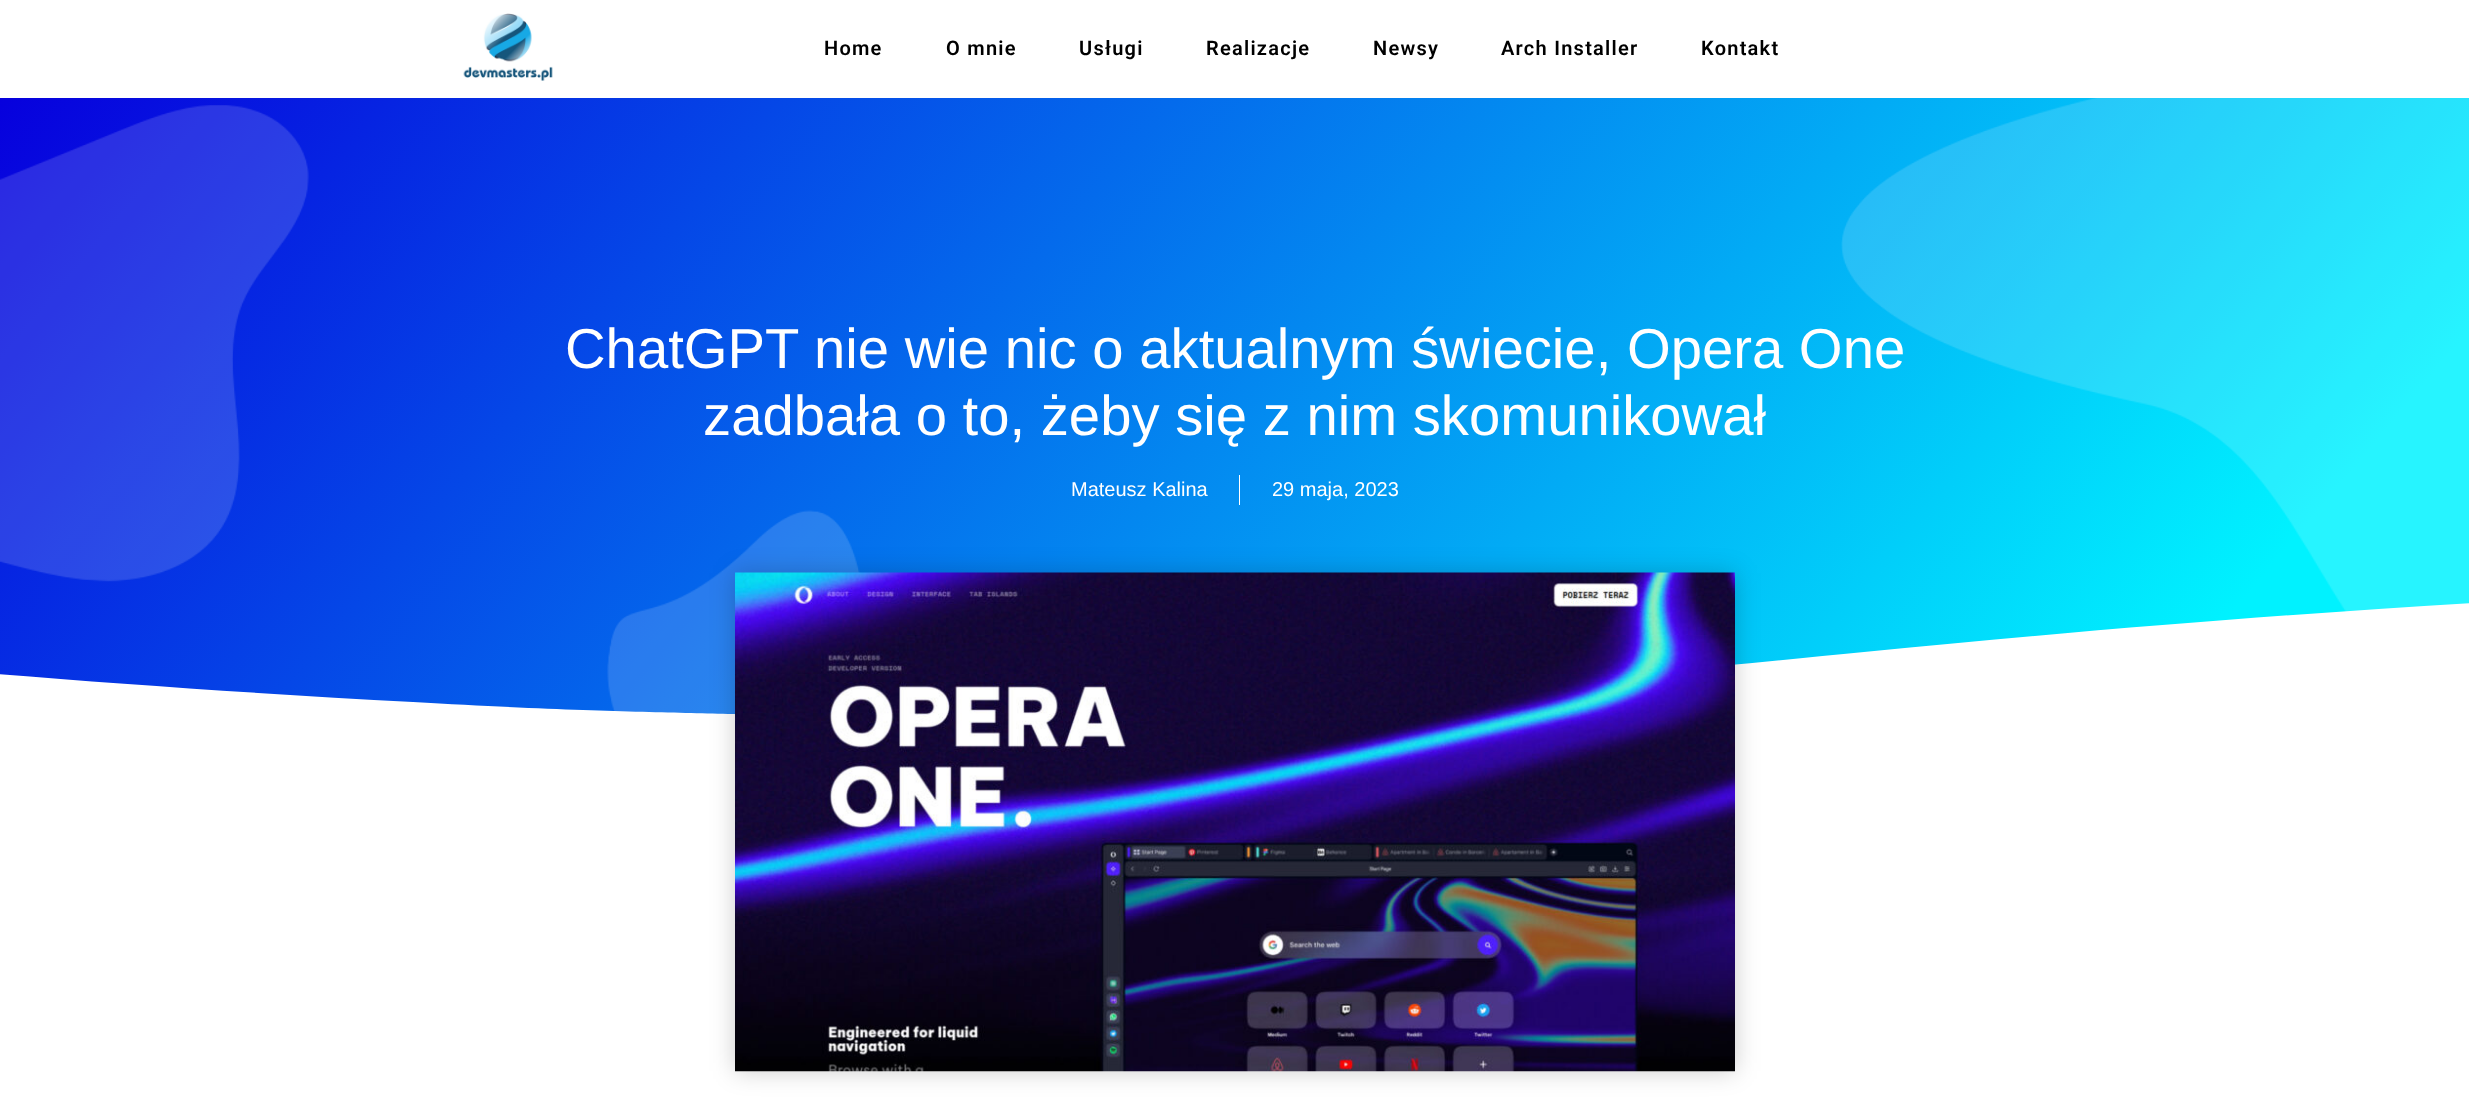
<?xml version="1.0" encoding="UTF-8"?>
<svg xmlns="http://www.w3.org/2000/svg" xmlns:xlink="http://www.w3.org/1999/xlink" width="2469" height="1106">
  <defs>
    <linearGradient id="g1" gradientUnits="userSpaceOnUse" x1="356" y1="-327" x2="2114" y2="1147"><stop offset="0" stop-color="#0700dd" /><stop offset="0.89" stop-color="#00f2ff" /></linearGradient>
  </defs>
  <rect width="100%" height="100%" fill="#ffffff" />
  <image x="463" y="13" width="90" height="68" xlink:href="image1.png" />
  <rect y="98" width="2469" height="617" fill="url(#g1)" />
  <image x="0" y="98" width="2469" height="617" xlink:href="image2.png" />
  <rect x="1239" y="475" width="1" height="30" fill="#ffffff" />
  <path d="M 733 714 c 145 4 331 -1 485 -8 c 152 -7 456 -35 646 -54 c 487 -48 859 -66 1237 -74 c 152 -3 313 -5 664 4 c 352 9 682 38 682 38 v 104 h -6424 v -46 c 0 0 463 -49 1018 -45 c 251 1 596 10 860 33 c 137 12 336 27 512 36 c 175 10 254 10 320 12 z" fill="#ffffff" />
  <rect x="735" y="573" width="1000" height="498" fill="#000000" fill-opacity="0.2" filter="blur(12.5px)" />
  <image x="735" y="572" width="1000" height="500" xlink:href="image3.png" />
  <text x="824" y="55" style="font-family: Roboto; font-size: 20px; font-weight: 600; letter-spacing: 1.25px; fill: #000000">Home</text>
  <text x="946" y="55" style="font-family: Roboto; font-size: 20px; font-weight: 600; letter-spacing: 1.25px; fill: #000000">O mnie</text>
  <text x="1079" y="55" style="font-family: Roboto; font-size: 20px; font-weight: 600; letter-spacing: 1.25px; fill: #000000">Usługi</text>
  <text x="1206" y="55" style="font-family: Roboto; font-size: 20px; font-weight: 600; letter-spacing: 1.25px; fill: #000000">Realizacje</text>
  <text x="1373" y="55" style="font-family: Roboto; font-size: 20px; font-weight: 600; letter-spacing: 1.25px; fill: #000000">Newsy</text>
  <text x="1501" y="55" style="font-family: Roboto; font-size: 20px; font-weight: 600; letter-spacing: 1.25px; fill: #000000">Arch Installer</text>
  <text x="1701" y="55" style="font-family: Roboto; font-size: 20px; font-weight: 600; letter-spacing: 1.25px; fill: #000000">Kontakt</text>
  <text x="565" y="368" style="font-family: Liberation Sans; font-size: 56.25px; fill: #ffffff">ChatGPT nie wie nic o aktualnym świecie, Opera One</text>
  <text x="703" y="435" style="font-family: Liberation Sans; font-size: 56.25px; fill: #ffffff">zadbała o to, żeby się z nim skomunikował</text>
  <text x="1071" y="496" style="font-family: Liberation Sans; font-size: 20px; fill: #ffffff">Mateusz Kalina</text>
  <text x="1272" y="496" style="font-family: Liberation Sans; font-size: 20px; fill: #ffffff">29 maja, 2023</text>
</svg>
